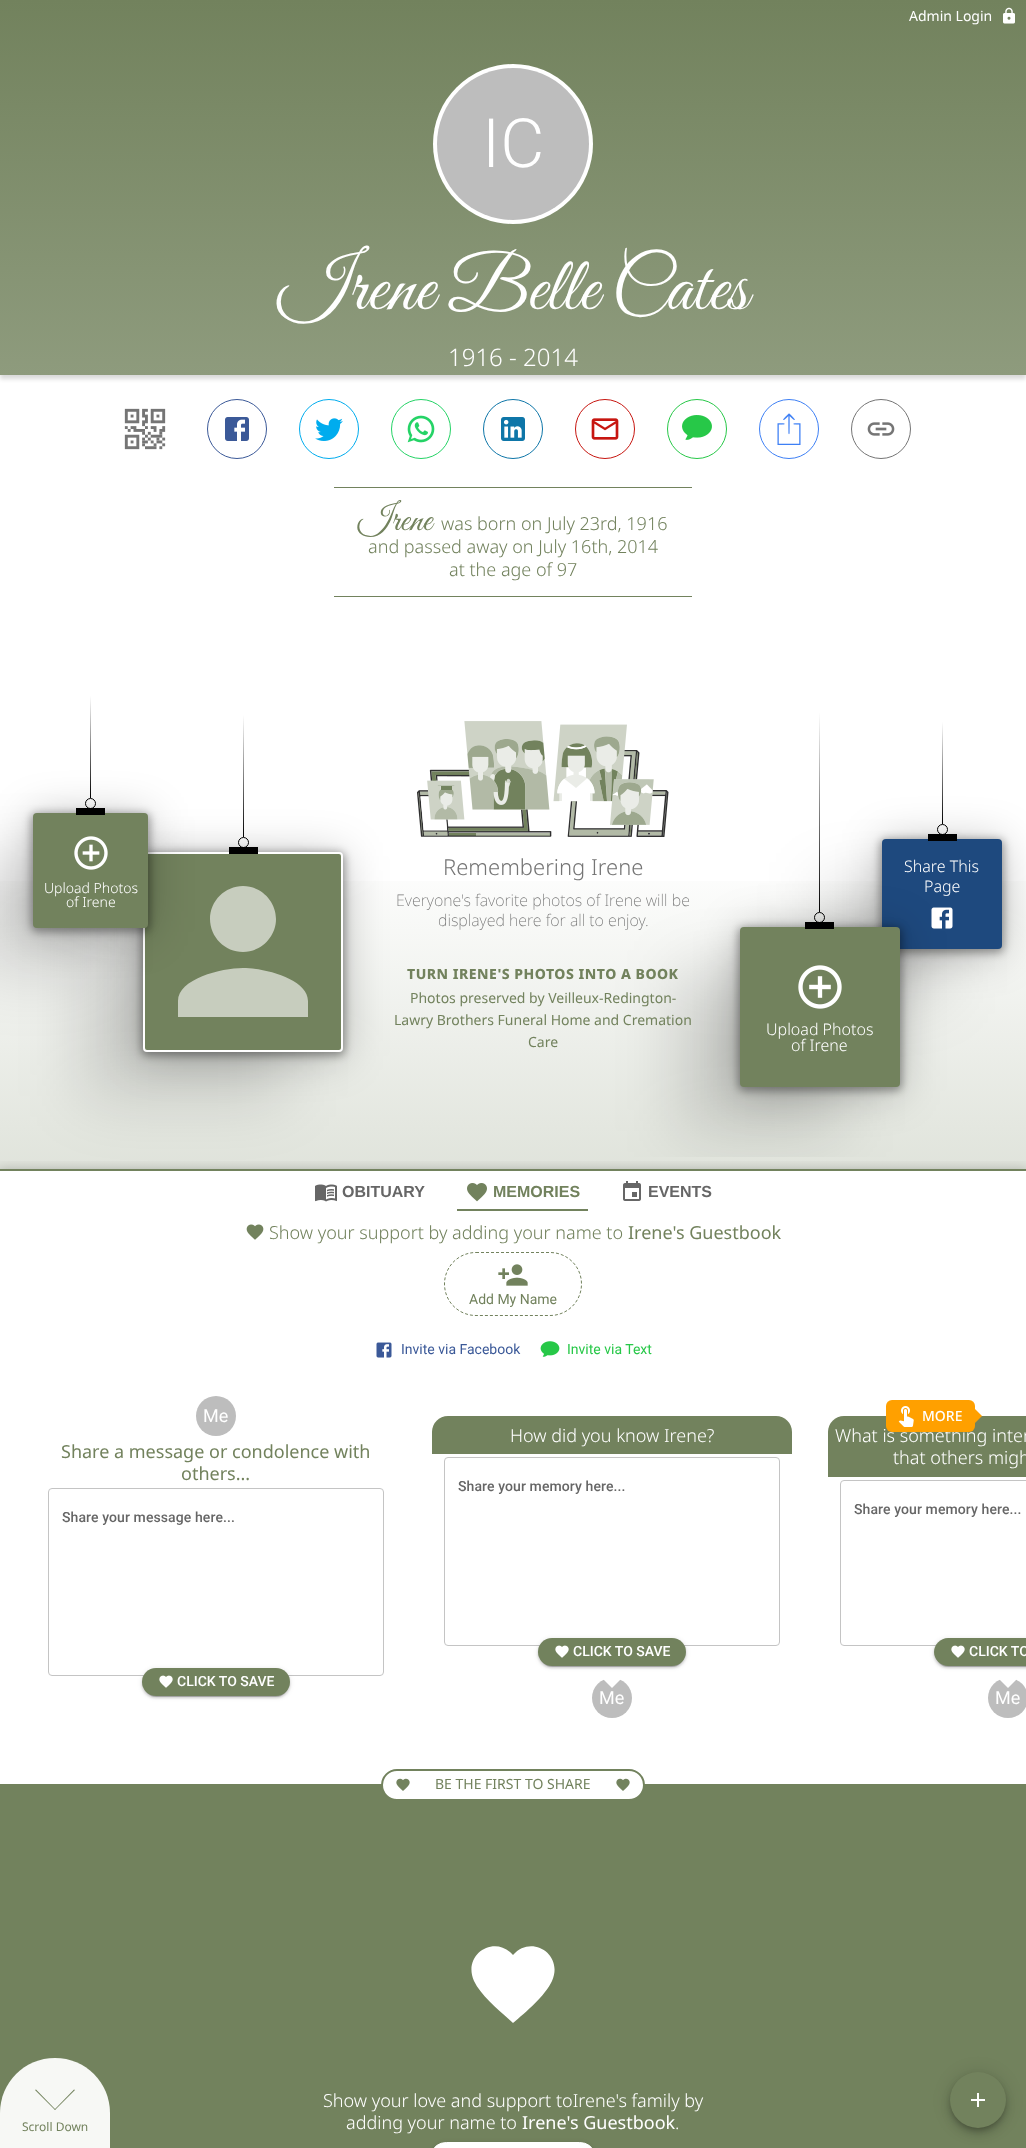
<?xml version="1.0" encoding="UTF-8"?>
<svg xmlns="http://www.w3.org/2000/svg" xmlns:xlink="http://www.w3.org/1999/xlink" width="1026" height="2148">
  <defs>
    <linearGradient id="g1" gradientUnits="userSpaceOnUse" x1="513" y1="0" x2="513" y2="375"><stop offset="0" stop-color="#72825d" /><stop offset="1" stop-color="#8e9b7d" /></linearGradient>
    <clipPath id="clip1"><rect x="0" y="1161" width="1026" height="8" /></clipPath>
    <linearGradient id="g2" gradientUnits="userSpaceOnUse" x1="513" y1="637" x2="513" y2="1169"><stop offset="0.4" stop-color="#72825d" stop-opacity="0" /><stop offset="1" stop-color="#72825d" stop-opacity="0.22" /></linearGradient>
    <linearGradient id="g3" gradientUnits="userSpaceOnUse" x1="244" y1="715" x2="244" y2="837"><stop offset="0" stop-color="#ffffff" /><stop offset="1" stop-color="#000000" /></linearGradient>
    <linearGradient id="g4" gradientUnits="userSpaceOnUse" x1="943" y1="722" x2="943" y2="824"><stop offset="0" stop-color="#ffffff" /><stop offset="1" stop-color="#000000" /></linearGradient>
    <clipPath id="clip2"><rect x="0" y="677" width="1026" height="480" /></clipPath>
    <linearGradient id="g5" gradientUnits="userSpaceOnUse" x1="820" y1="712" x2="820" y2="912"><stop offset="0" stop-color="#ffffff" /><stop offset="1" stop-color="#000000" /></linearGradient>
    <linearGradient id="g6" gradientUnits="userSpaceOnUse" x1="91" y1="696" x2="91" y2="798"><stop offset="0" stop-color="#ffffff" /><stop offset="1" stop-color="#000000" /></linearGradient>
  </defs>
  <rect width="100%" height="100%" fill="#ffffff" />
  <rect y="4" width="1026" height="375" fill="#000000" fill-opacity="0.15" filter="blur(2px)" />
  <rect width="1026" height="375" fill="url(#g1)" />
  <image x="1003" y="7" width="12" height="17" xlink:href="image1.png" />
  <circle cx="513" cy="144" r="80" fill="#ffffff" />
  <circle cx="513" cy="144" r="76" fill="#bdbdbd" />
  <image x="124" y="408" width="42" height="42" xlink:href="image2.png" />
  <circle cx="237" cy="429" r="29.5" fill="none" stroke="#3b5998" />
  <image x="225" y="417" width="24" height="24" xlink:href="image3.png" />
  <circle cx="329" cy="429" r="29.5" fill="none" stroke="#00acee" />
  <image x="315" y="418" width="28" height="23" xlink:href="image4.png" />
  <circle cx="421" cy="429" r="29.5" fill="none" stroke="#25d366" />
  <image x="407" y="415" width="28" height="28" xlink:href="image5.png" />
  <circle cx="513" cy="429" r="29.5" fill="none" stroke="#0e76a8" />
  <image x="501" y="417" width="24" height="24" xlink:href="image6.png" />
  <circle cx="605" cy="429" r="29.5" fill="none" stroke="#c71610" />
  <image x="591" y="418" width="28" height="22" xlink:href="image7.png" />
  <circle cx="697" cy="429" r="29.5" fill="none" stroke="#27c848" />
  <image x="682" y="415" width="30" height="25" xlink:href="image8.png" />
  <circle cx="789" cy="429" r="29.5" fill="none" stroke="#3e80f5" />
  <image x="777" y="413" width="24" height="32" xlink:href="image9.png" />
  <circle cx="881" cy="429" r="29.5" fill="none" stroke="#757575" />
  <image x="867" y="422" width="28" height="14" xlink:href="image10.png" />
  <rect x="334" y="487" width="358" height="1" fill="#72825d" />
  <rect x="334" y="596" width="358" height="1" fill="#72825d" />
  <g clip-path="url(#clip1)">
    <rect x="-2" y="1169" width="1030" height="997" fill="#000000" fill-opacity="0.25" filter="blur(6px)" />
  </g>
  <rect y="881" width="1026" height="288" fill="url(#g2)" />
  <rect y="1169" width="1026" height="2" fill="#72825d" />
  <rect x="143" y="856" width="200" height="200" rx="4" fill="#000000" fill-opacity="0.25" filter="blur(22px)" />
  <rect x="83" y="896" width="200" height="200" rx="4" fill="#000000" fill-opacity="0.15" filter="blur(32px)" />
  <rect x="243" y="715" width="1" height="122" fill="url(#g3)" />
  <rect x="141" y="852" width="204" height="204" rx="6" fill="#000000" fill-opacity="0.35" filter="blur(4px)" />
  <rect x="144" y="853" width="198" height="198" rx="3" fill="#72825d" stroke="#ffffff" stroke-width="2" />
  <rect x="229" y="847" width="29" height="7" fill="#000000" />
  <circle cx="243.5" cy="842.5" r="5" fill="none" stroke="#000000" />
  <path d="M 243 952 c 18 0 33 -15 33 -33 c 0 -18 -15 -33 -33 -33 c -18 0 -33 15 -33 33 c 0 18 15 33 33 33 z m 0 16 c -22 0 -65 11 -65 33 v 16 h 130 v -16 c 0 -22 -43 -33 -65 -33 z" fill="#c7cdbe" />
  <image x="417" y="721" width="252" height="116" xlink:href="image11.png" />
  <rect x="882" y="843" width="120" height="110" rx="4" fill="#000000" fill-opacity="0.25" filter="blur(22px)" />
  <rect x="822" y="883" width="120" height="110" rx="4" fill="#000000" fill-opacity="0.15" filter="blur(32px)" />
  <rect x="942" y="722" width="1" height="102" fill="url(#g4)" />
  <rect x="880" y="839" width="124" height="114" rx="6" fill="#000000" fill-opacity="0.35" filter="blur(4px)" />
  <rect x="882" y="839" width="120" height="110" rx="4" fill="#1e497e" />
  <rect x="928" y="834" width="29" height="7" fill="#000000" />
  <circle cx="942.5" cy="829.5" r="5" fill="none" stroke="#000000" />
  <image x="931" y="907" width="22" height="22" xlink:href="image12.png" />
  <rect x="740" y="931" width="160" height="160" rx="4" fill="#000000" fill-opacity="0.25" filter="blur(22px)" />
  <g clip-path="url(#clip2)">
    <rect x="680" y="971" width="160" height="160" rx="4" fill="#000000" fill-opacity="0.15" filter="blur(32px)" />
  </g>
  <rect x="819" y="712" width="1" height="200" fill="url(#g5)" />
  <rect x="738" y="927" width="164" height="164" rx="6" fill="#000000" fill-opacity="0.35" filter="blur(4px)" />
  <rect x="740" y="927" width="160" height="160" rx="4" fill="#72825d" />
  <rect x="805" y="922" width="29" height="7" fill="#000000" />
  <circle cx="819.5" cy="917.5" r="5" fill="none" stroke="#000000" />
  <image x="798" y="965" width="44" height="44" xlink:href="image13.png" />
  <rect x="33" y="817" width="115" height="115" rx="4" fill="#000000" fill-opacity="0.25" filter="blur(22px)" />
  <rect x="-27" y="857" width="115" height="115" rx="4" fill="#000000" fill-opacity="0.15" filter="blur(32px)" />
  <rect x="90" y="696" width="1" height="102" fill="url(#g6)" />
  <rect x="31" y="813" width="119" height="119" rx="6" fill="#000000" fill-opacity="0.35" filter="blur(4px)" />
  <rect x="33" y="813" width="115" height="115" rx="4" fill="#72825d" />
  <rect x="76" y="808" width="29" height="7" fill="#000000" />
  <circle cx="90.5" cy="803.5" r="5" fill="none" stroke="#000000" />
  <image x="74" y="836" width="34" height="34" xlink:href="image14.png" />
  <image x="315" y="1184" width="22" height="18" xlink:href="image15.png" />
  <image x="467" y="1183" width="20" height="19" xlink:href="image16.png" />
  <image x="623" y="1181" width="18" height="20" xlink:href="image17.png" />
  <rect x="457" y="1209" width="131" height="2" fill="#72825d" />
  <image x="246" y="1224" width="18" height="16" xlink:href="image18.png" />
  <path d="M 476 1252.5 h 74 c 17.5 0 31.5 14 31.5 31.5 c 0 17.5 -14 31.5 -31.5 31.5 h -74 c -17.5 0 -31.5 -14 -31.5 -31.5 c 0 -17.5 14 -31.5 31.5 -31.5 z" fill="none" stroke="#72825d" stroke-dasharray="3 2" />
  <image x="498" y="1264" width="30" height="22" xlink:href="image19.png" />
  <image x="376" y="1342" width="16" height="16" xlink:href="image20.png" />
  <image x="540" y="1341" width="20" height="16" xlink:href="image21.png" />
  <circle cx="216" cy="1416" r="20" fill="#bdbdbd" />
  <rect x="48.5" y="1488.5" width="335" height="187" rx="3.5" fill="none" stroke="#c4c4c4" />
  <rect x="142" y="1669" width="148" height="28" rx="14" fill="#000000" fill-opacity="0.12" filter="blur(2.5px)" />
  <rect x="142" y="1670" width="148" height="28" rx="14" fill="#000000" fill-opacity="0.14" filter="blur(1px)" />
  <rect x="144" y="1673" width="144" height="24" rx="12" fill="#000000" fill-opacity="0.2" filter="blur(0.5px)" />
  <rect x="142" y="1668" width="148" height="28" rx="14" fill="#72825d" />
  <image x="159" y="1675" width="14" height="13" xlink:href="image22.png" />
  <path d="M 448 1416 h 328 c 9 0 16 7 16 16 v 22 h -360 v -22 c 0 -9 7 -16 16 -16 z" fill="#72825d" />
  <rect x="444.5" y="1457.5" width="335" height="188" rx="3.5" fill="none" stroke="#c4c4c4" />
  <rect x="538" y="1639" width="148" height="28" rx="14" fill="#000000" fill-opacity="0.12" filter="blur(2.5px)" />
  <rect x="538" y="1640" width="148" height="28" rx="14" fill="#000000" fill-opacity="0.14" filter="blur(1px)" />
  <rect x="540" y="1643" width="144" height="24" rx="12" fill="#000000" fill-opacity="0.2" filter="blur(0.5px)" />
  <rect x="538" y="1638" width="148" height="28" rx="14" fill="#72825d" />
  <image x="555" y="1645" width="14" height="13" xlink:href="image22.png" />
  <circle cx="612" cy="1698" r="20" fill="#bdbdbd" />
  <path d="M 600 1676 h 24 l -12 12 z" fill="#ffffff" />
  <path d="M 844 1416 h 182 v 61 h -198 v -45 c 0 -9 7 -16 16 -16 z" fill="#72825d" />
  <rect x="840.5" y="1480.5" width="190" height="165" rx="3.5" fill="none" stroke="#c4c4c4" />
  <rect x="934" y="1639" width="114" height="28" rx="14" fill="#000000" fill-opacity="0.12" filter="blur(2.5px)" />
  <rect x="934" y="1640" width="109" height="28" rx="14" fill="#000000" fill-opacity="0.14" filter="blur(1px)" />
  <rect x="936" y="1643" width="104" height="24" rx="12" fill="#000000" fill-opacity="0.2" filter="blur(0.5px)" />
  <path d="M 948 1638 h 78 v 28 h -78 c -7.5 0 -14 -6.5 -14 -14 c 0 -7.5 6.5 -14 14 -14 z" fill="#72825d" />
  <image x="951" y="1645" width="14" height="13" xlink:href="image22.png" />
  <circle cx="1008" cy="1698" r="20" fill="#bdbdbd" />
  <path d="M 996 1676 h 24 l -12 12 z" fill="#ffffff" />
  <rect y="1784" width="1026" height="364" fill="#72825d" />
  <rect x="382" y="1770" width="262" height="30" rx="15" fill="#ffffff" stroke="#72825d" stroke-width="2" />
  <image x="396" y="1778" width="14" height="13" xlink:href="image24.png" />
  <image x="616" y="1778" width="14" height="13" xlink:href="image24.png" />
  <path d="M 513 2023 c -13 -12 -32 -27 -39 -42 c -12 -27 21 -47 39 -26 c 18 -21 51 -1 39 26 c -7 15 -26 31 -39 42 z" fill="#ffffff" />
  <rect x="432" y="2143" width="162" height="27" rx="14.5" fill="#000000" fill-opacity="0.12" filter="blur(2.5px)" />
  <rect x="432.5" y="2142.5" width="161" height="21" rx="14" fill="#ffffff" stroke="#ffffff" />
  <path d="M 55 2058 c 30.5 0 55 24.5 55 55 v 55 h -110 v -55 c 0 -30.5 24.5 -55 55 -55 z" fill="#f7f8f5" />
  <path d="M 54.5 2109.5 l 19.5 -20 l 1 0.5 l -20 20 z" fill="#72825d" />
  <path d="M 35 2090 l 1 -0.5 l 19.5 20 l -0.5 0.5 z" fill="#72825d" />
  <rect x="950" y="2073" width="56" height="56" rx="28" fill="#000000" fill-opacity="0.12" filter="blur(9px)" />
  <rect x="950" y="2078" width="56" height="56" rx="28" fill="#000000" fill-opacity="0.14" filter="blur(5px)" />
  <rect x="951" y="2076" width="54" height="54" rx="27" fill="#000000" fill-opacity="0.2" filter="blur(2.5px)" />
  <circle cx="978" cy="2100" r="28" fill="#72825d" />
  <image x="971" y="2093" width="14" height="14" xlink:href="image25.png" />
  <text x="909" y="21" style="font-family: Noto Sans; font-size: 14px; fill: #ffffff">Admin Login</text>
  <text x="482" y="167" style="font-family: Roboto; font-size: 68px; font-weight: 300; fill: #ffffff">IC</text>
  <text x="278" y="309" style="font-family: Great Vibes; font-size: 76px; fill: #ffffff">Irene Belle Cates</text>
  <text x="448" y="366" style="font-family: Noto Sans; font-size: 24px; font-weight: 300; fill: #ffffff">1916 - 2014</text>
  <text x="358" y="530" style="font-family: Great Vibes; font-size: 36px; fill: #72825d">Irene</text>
  <text x="441" y="530" style="font-family: Noto Sans; font-size: 18px; font-weight: 300; fill: #72825d">was born on July 23rd, 1916</text>
  <text x="368" y="553" style="font-family: Noto Sans; font-size: 18px; font-weight: 300; fill: #72825d">and passed away on July 16th, 2014</text>
  <text x="449" y="576" style="font-family: Noto Sans; font-size: 18px; font-weight: 300; fill: #72825d">at the age of 97</text>
  <text x="443" y="875" style="font-family: Noto Sans; font-size: 22px; font-weight: 300; fill: #757575">Remembering Irene</text>
  <text x="396" y="906" style="font-family: Noto Sans; font-size: 16px; font-weight: 200; fill: #757575">Everyone's favorite photos of Irene will be</text>
  <text x="438" y="926" style="font-family: Noto Sans; font-size: 16px; font-weight: 200; fill: #757575">displayed here for all to enjoy.</text>
  <text x="407" y="979" style="font-family: Noto Sans; font-size: 14px; font-weight: 800; letter-spacing: 0.5px; fill: #72825d">TURN IRENE'S PHOTOS INTO A BOOK</text>
  <text x="410" y="1003" style="font-family: Noto Sans; font-size: 14px; fill: #72825d">Photos preserved by Veilleux-Redington-</text>
  <text x="394" y="1025" style="font-family: Noto Sans; font-size: 14px; fill: #72825d">Lawry Brothers Funeral Home and Cremation</text>
  <text x="528" y="1047" style="font-family: Noto Sans; font-size: 14px; fill: #72825d">Care</text>
  <text x="904" y="872" style="font-family: Noto Sans; font-size: 16px; font-weight: 300; fill: #ffffff">Share This</text>
  <text x="924" y="892" style="font-family: Noto Sans; font-size: 16px; font-weight: 300; fill: #ffffff">Page</text>
  <text x="766" y="1035" style="font-family: Noto Sans; font-size: 16px; font-weight: 300; fill: #ffffff">Upload Photos</text>
  <text x="791" y="1051" style="font-family: Noto Sans; font-size: 16px; font-weight: 300; fill: #ffffff">of Irene</text>
  <text x="44" y="893" style="font-family: Noto Sans; font-size: 14px; font-weight: 300; fill: #ffffff">Upload Photos</text>
  <text x="66" y="907" style="font-family: Noto Sans; font-size: 14px; font-weight: 300; fill: #ffffff">of Irene</text>
  <text x="342" y="1197" style="font-family: Liberation Sans; font-size: 16px; font-weight: bold; fill: #666666">OBITUARY</text>
  <text x="493" y="1197" style="font-family: Liberation Sans; font-size: 16px; font-weight: bold; fill: #72825d">MEMORIES</text>
  <text x="648" y="1197" style="font-family: Liberation Sans; font-size: 16px; font-weight: bold; fill: #666666">EVENTS</text>
  <text x="269" y="1239" style="font-family: Noto Sans; font-size: 18px; font-weight: 300; fill: #72825d">Show your support by adding your name to</text>
  <text x="628" y="1239" style="font-family: Noto Sans; font-size: 18px; fill: #72825d">Irene's Guestbook</text>
  <text x="469" y="1304" style="font-family: Roboto; font-size: 14px; fill: #72825d">Add My Name</text>
  <text x="401" y="1354" style="font-family: Roboto; font-size: 14px; fill: #3b5998">Invite via Facebook</text>
  <text x="567" y="1354" style="font-family: Roboto; font-size: 14px; fill: #27c848">Invite via Text</text>
  <text x="203" y="1422" style="font-family: Roboto; font-size: 18px; fill: #ffffff">Me</text>
  <text x="61" y="1458" style="font-family: Noto Sans; font-size: 18px; fill: #72825d">Share a message or condolence with</text>
  <text x="181" y="1480" style="font-family: Noto Sans; font-size: 18px; fill: #72825d">others...</text>
  <text x="62" y="1522" style="font-family: Roboto; font-size: 14px; font-weight: 500; letter-spacing: 0.1px; fill: #666666">Share your message here...</text>
  <text x="177" y="1686" style="font-family: Roboto; font-size: 14px; font-weight: 500; fill: #ffffff">CLICK TO SAVE</text>
  <text x="510" y="1442" style="font-family: Noto Sans; font-size: 18px; font-weight: 300; fill: #ffffff">How did you know Irene?</text>
  <text x="458" y="1491" style="font-family: Roboto; font-size: 14px; font-weight: 500; letter-spacing: 0.1px; fill: #666666">Share your memory here...</text>
  <text x="573" y="1656" style="font-family: Roboto; font-size: 14px; font-weight: 500; fill: #ffffff">CLICK TO SAVE</text>
  <text x="599" y="1704" style="font-family: Roboto; font-size: 18px; fill: #ffffff">Me</text>
  <text x="835" y="1442" style="font-family: Noto Sans; font-size: 18px; font-weight: 300; fill: #ffffff">What is something inter</text>
  <text x="893" y="1464" style="font-family: Noto Sans; font-size: 18px; font-weight: 300; fill: #ffffff">that others migh</text>
  <text x="854" y="1514" style="font-family: Roboto; font-size: 14px; font-weight: 500; letter-spacing: 0.1px; fill: #666666">Share your memory here...</text>
  <text x="969" y="1656" style="font-family: Roboto; font-size: 14px; font-weight: 500; fill: #ffffff">CLICK TO</text>
  <text x="995" y="1704" style="font-family: Roboto; font-size: 18px; fill: #ffffff">Me</text>
  <rect x="886" y="1400" width="89" height="32" rx="6" fill="#ffa000" />
  <image x="898" y="1406" width="16" height="21" xlink:href="image23.png" />
  <text x="922" y="1421" style="font-family: Noto Sans; font-size: 14px; font-weight: 500; fill: #ffffff">MORE</text>
  <path d="M 974 1424 v -16 l 8 8 z" fill="#ffa000" />
  <text x="435" y="1789" style="font-family: Noto Sans; font-size: 14px; fill: #72825d">BE THE FIRST TO SHARE</text>
  <text x="323" y="2107" style="font-family: Noto Sans; font-size: 18px; font-weight: 300; fill: #ffffff">Show your love and support toIrene's family by</text>
  <text x="346" y="2129" style="font-family: Noto Sans; font-size: 18px; font-weight: 300; fill: #ffffff">adding your name to</text>
  <text x="522" y="2129" style="font-family: Noto Sans; font-size: 18px; fill: #ffffff">Irene's Guestbook</text>
  <text x="675" y="2129" style="font-family: Noto Sans; font-size: 18px; font-weight: 300; fill: #ffffff">.</text>
  <text x="22" y="2131" style="font-family: Noto Sans; font-size: 12px; fill: #72825d">Scroll Down</text>
</svg>
